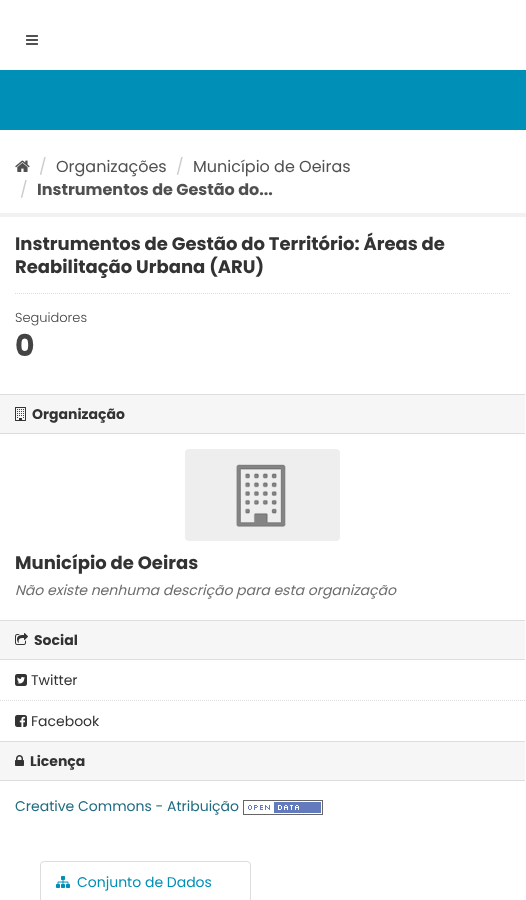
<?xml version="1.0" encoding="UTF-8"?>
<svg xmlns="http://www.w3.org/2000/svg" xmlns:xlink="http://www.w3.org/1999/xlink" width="526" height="900">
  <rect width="100%" height="100%" fill="#ffffff" />
  <rect y="70" width="526" height="60" fill="#008fb6" />
  <image x="26" y="35" width="12" height="10" xlink:href="image1.png" />
  <image x="15" y="160" width="15" height="12" xlink:href="image2.png" />
  <rect x="-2" y="215" width="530" height="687" fill="none" stroke="#f2f2f2" stroke-width="4" />
  <path d="M 15 293.5 h 495" fill="none" stroke="#dddddd" stroke-dasharray="1 1" />
  <rect y="395" width="525" height="38" fill="#f6f6f6" />
  <rect y="394" width="525" height="1" fill="#dddddd" />
  <rect y="433" width="525" height="1" fill="#dddddd" />
  <image x="15" y="407" width="11" height="14" xlink:href="image3.png" />
  <image x="185" y="449" width="155" height="92" xlink:href="image4.png" />
  <rect y="621" width="525" height="38" fill="#f6f6f6" />
  <rect y="620" width="525" height="1" fill="#dddddd" />
  <rect y="659" width="525" height="1" fill="#dddddd" />
  <image x="15" y="633" width="13" height="12" xlink:href="image5.png" />
  <path d="M 0 700.5 h 525" fill="none" stroke="#dddddd" stroke-dasharray="1 1" />
  <image x="15" y="674" width="12" height="12" xlink:href="image6.png" />
  <image x="15" y="715" width="12" height="12" xlink:href="image7.png" />
  <rect y="742" width="525" height="38" fill="#f6f6f6" />
  <rect y="741" width="525" height="1" fill="#dddddd" />
  <rect y="780" width="525" height="1" fill="#dddddd" />
  <image x="15" y="755" width="9" height="11" xlink:href="image8.png" />
  <image x="243" y="800" width="80" height="15" xlink:href="image9.png" />
  <rect x="40.5" y="861.5" width="210" height="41" rx="3.5" fill="none" stroke="#dddddd" />
  <image x="56" y="876" width="14" height="12" xlink:href="image10.png" />
  <text x="39" y="172" style="font-family: Poppins; font-size: 16px; fill: #cccccc">/</text>
  <text x="56" y="172" style="font-family: Poppins; font-size: 16px; fill: #505050">Organizações</text>
  <text x="176" y="172" style="font-family: Poppins; font-size: 16px; fill: #cccccc">/</text>
  <text x="193" y="172" style="font-family: Poppins; font-size: 16px; fill: #505050">Município de Oeiras</text>
  <text x="20" y="195" style="font-family: Poppins; font-size: 16px; fill: #cccccc">/</text>
  <text x="37" y="195" style="font-family: Poppins; font-size: 16px; font-weight: bold; fill: #505050">Instrumentos de Gestão do...</text>
  <text x="15" y="250" style="font-family: Poppins; font-size: 18px; font-weight: bold; fill: #333333">Instrumentos de Gestão do Território: Áreas de</text>
  <text x="15" y="273" style="font-family: Poppins; font-size: 18px; font-weight: bold; fill: #333333">Reabilitação Urbana (ARU)</text>
  <text x="15" y="322" style="font-family: Poppins; font-size: 13px; font-weight: 300; fill: #444444">Seguidores</text>
  <text x="15" y="356" style="font-family: Poppins; font-size: 30px; font-weight: bold; fill: #444444">0</text>
  <text x="32" y="419" style="font-family: Poppins; font-size: 14px; font-weight: bold; fill: #333333">Organização</text>
  <text x="15" y="569" style="font-family: Poppins; font-size: 18px; font-weight: bold; fill: #333333">Município de Oeiras</text>
  <text x="15" y="595" style="font-family: Poppins; font-size: 14px; font-style: italic; fill: #6e6e6e">Não existe nenhuma descrição para esta organização</text>
  <text x="34" y="645" style="font-family: Poppins; font-size: 14px; font-weight: bold; fill: #333333">Social</text>
  <text x="31" y="685" style="font-family: Poppins; font-size: 14px; fill: #333333">Twitter</text>
  <text x="31" y="726" style="font-family: Poppins; font-size: 14px; fill: #333333">Facebook</text>
  <text x="30" y="766" style="font-family: Poppins; font-size: 14px; font-weight: bold; fill: #333333">Licença</text>
  <text x="15" y="811" style="font-family: Poppins; font-size: 14px; fill: #206b82">Creative Commons - Atribuição</text>
  <text x="77" y="887" style="font-family: Poppins; font-size: 14px; fill: #008fb6">Conjunto de Dados</text>
</svg>
